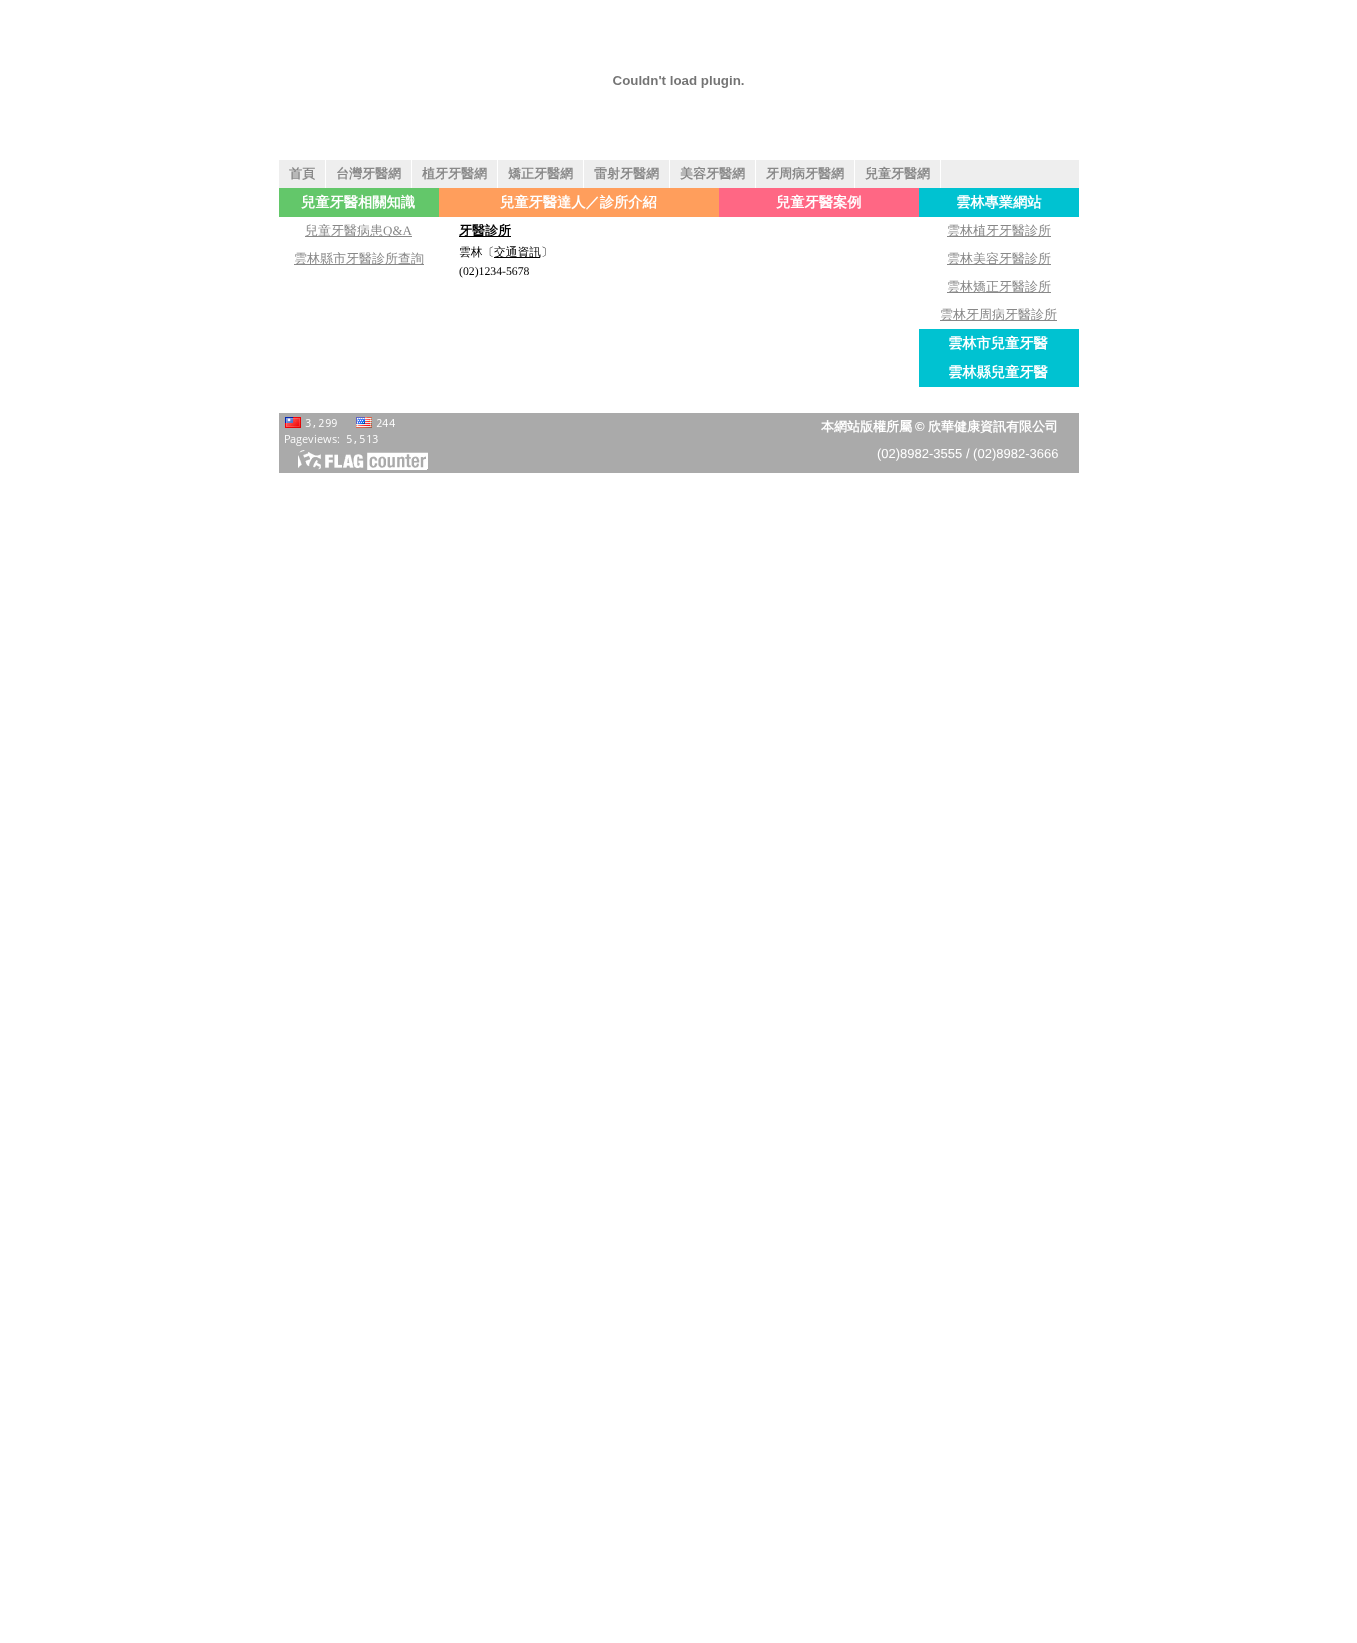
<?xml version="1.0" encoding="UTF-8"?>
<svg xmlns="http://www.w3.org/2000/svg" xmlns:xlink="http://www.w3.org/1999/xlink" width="1357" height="1643">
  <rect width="100%" height="100%" fill="#ffffff" />
  <image x="613" y="76" width="131" height="12" xlink:href="image1.png" />
  <rect x="279" y="160" width="800" height="28" fill="#eeeeee" />
  <rect x="325" y="160" width="1" height="28" fill="#ffffff" />
  <rect x="411" y="160" width="1" height="28" fill="#ffffff" />
  <rect x="497" y="160" width="1" height="28" fill="#ffffff" />
  <rect x="583" y="160" width="1" height="28" fill="#ffffff" />
  <rect x="669" y="160" width="1" height="28" fill="#ffffff" />
  <rect x="755" y="160" width="1" height="28" fill="#ffffff" />
  <rect x="854" y="160" width="1" height="28" fill="#ffffff" />
  <rect x="940" y="160" width="1" height="28" fill="#ffffff" />
  <rect x="279" y="188" width="160" height="29" fill="#63c76a" />
  <rect x="305" y="236" width="107" height="1" fill="#888888" />
  <rect x="294" y="264" width="130" height="1" fill="#888888" />
  <rect x="439" y="188" width="280" height="29" fill="#ff9e5c" />
  <rect x="459" y="236" width="52" height="1" fill="#000000" />
  <rect x="494" y="257" width="46" height="1" fill="#000000" />
  <rect x="719" y="188" width="200" height="29" fill="#ff6784" />
  <rect x="919" y="188" width="160" height="29" fill="#00c2d1" />
  <rect x="947" y="236" width="104" height="1" fill="#888888" />
  <rect x="947" y="264" width="104" height="1" fill="#888888" />
  <rect x="947" y="292" width="104" height="1" fill="#888888" />
  <rect x="940" y="320" width="117" height="1" fill="#888888" />
  <rect x="919" y="329" width="160" height="58" fill="#00c2d1" />
  <rect x="279" y="413" width="800" height="60" fill="#aaaaaa" />
  <image x="285" y="417" width="143" height="53" xlink:href="image2.png" />
  <text x="289" y="178" style="font-family: WenQuanYi Zen Hei; font-size: 13px; font-weight: bold; fill: #888888">首頁</text>
  <text x="336" y="178" style="font-family: WenQuanYi Zen Hei; font-size: 13px; font-weight: bold; fill: #888888">台灣牙醫網</text>
  <text x="422" y="178" style="font-family: WenQuanYi Zen Hei; font-size: 13px; font-weight: bold; fill: #888888">植牙牙醫網</text>
  <text x="508" y="178" style="font-family: WenQuanYi Zen Hei; font-size: 13px; font-weight: bold; fill: #888888">矯正牙醫網</text>
  <text x="594" y="178" style="font-family: WenQuanYi Zen Hei; font-size: 13px; font-weight: bold; fill: #888888">雷射牙醫網</text>
  <text x="680" y="178" style="font-family: WenQuanYi Zen Hei; font-size: 13px; font-weight: bold; fill: #888888">美容牙醫網</text>
  <text x="766" y="178" style="font-family: WenQuanYi Zen Hei; font-size: 13px; font-weight: bold; fill: #888888">牙周病牙醫網</text>
  <text x="865" y="178" style="font-family: WenQuanYi Zen Hei; font-size: 13px; font-weight: bold; fill: #888888">兒童牙醫網</text>
  <text x="301" y="207" style="font-family: WenQuanYi Zen Hei; font-size: 14.25px; font-weight: bold; fill: #ffffff">兒童牙醫相關知識</text>
  <text x="305" y="235" style="font-family: WenQuanYi Zen Hei; font-size: 13px; font-weight: 500; fill: #888888">兒童牙醫病患</text>
  <text x="383" y="235" style="font-family: Liberation Serif; font-size: 13px; fill: #888888">Q&amp;A</text>
  <text x="294" y="263" style="font-family: WenQuanYi Zen Hei; font-size: 13px; font-weight: 500; fill: #888888">雲林縣市牙醫診所查詢</text>
  <text x="500" y="207" style="font-family: WenQuanYi Zen Hei; font-size: 14.25px; font-weight: bold; fill: #ffffff">兒童牙醫達人／診所介紹</text>
  <text x="459" y="235" style="font-family: WenQuanYi Zen Hei; font-size: 13px; font-weight: bold; fill: #000000">牙醫診所</text>
  <text x="459" y="256" style="font-family: WenQuanYi Zen Hei; font-size: 11.75px; font-weight: 500; fill: #000000">雲林〔</text>
  <text x="494" y="256" style="font-family: WenQuanYi Zen Hei; font-size: 11.75px; font-weight: 500; fill: #000000">交通資訊〕</text>
  <text x="459" y="275" style="font-family: Liberation Serif; font-size: 11.75px; fill: #000000">(02)1234-5678</text>
  <text x="776" y="207" style="font-family: WenQuanYi Zen Hei; font-size: 14.25px; font-weight: bold; fill: #ffffff">兒童牙醫案例</text>
  <text x="956" y="207" style="font-family: WenQuanYi Zen Hei; font-size: 14.25px; font-weight: bold; fill: #ffffff">雲林專業網站</text>
  <text x="947" y="235" style="font-family: WenQuanYi Zen Hei; font-size: 13px; font-weight: 500; fill: #888888">雲林植牙牙醫診所</text>
  <text x="947" y="263" style="font-family: WenQuanYi Zen Hei; font-size: 13px; font-weight: 500; fill: #888888">雲林美容牙醫診所</text>
  <text x="947" y="291" style="font-family: WenQuanYi Zen Hei; font-size: 13px; font-weight: 500; fill: #888888">雲林矯正牙醫診所</text>
  <text x="940" y="319" style="font-family: WenQuanYi Zen Hei; font-size: 13px; font-weight: 500; fill: #888888">雲林牙周病牙醫診所</text>
  <text x="948" y="348" style="font-family: WenQuanYi Zen Hei; font-size: 14.25px; font-weight: bold; fill: #ffffff">雲林市兒童牙醫</text>
  <text x="948" y="377" style="font-family: WenQuanYi Zen Hei; font-size: 14.25px; font-weight: bold; fill: #ffffff">雲林縣兒童牙醫</text>
  <text x="821" y="431" style="font-family: WenQuanYi Zen Hei; font-size: 13px; font-weight: bold; fill: #ffffff">本網站版權所屬</text>
  <text x="915" y="431" style="font-family: Liberation Sans; font-size: 13px; font-weight: bold; fill: #ffffff">©</text>
  <text x="928" y="431" style="font-family: WenQuanYi Zen Hei; font-size: 13px; font-weight: bold; fill: #ffffff">欣華健康資訊有限公司</text>
  <text x="877" y="458" style="font-family: Liberation Sans; font-size: 13px; fill: #ffffff">(02)8982-3555 / (02)8982-3666</text>
</svg>
